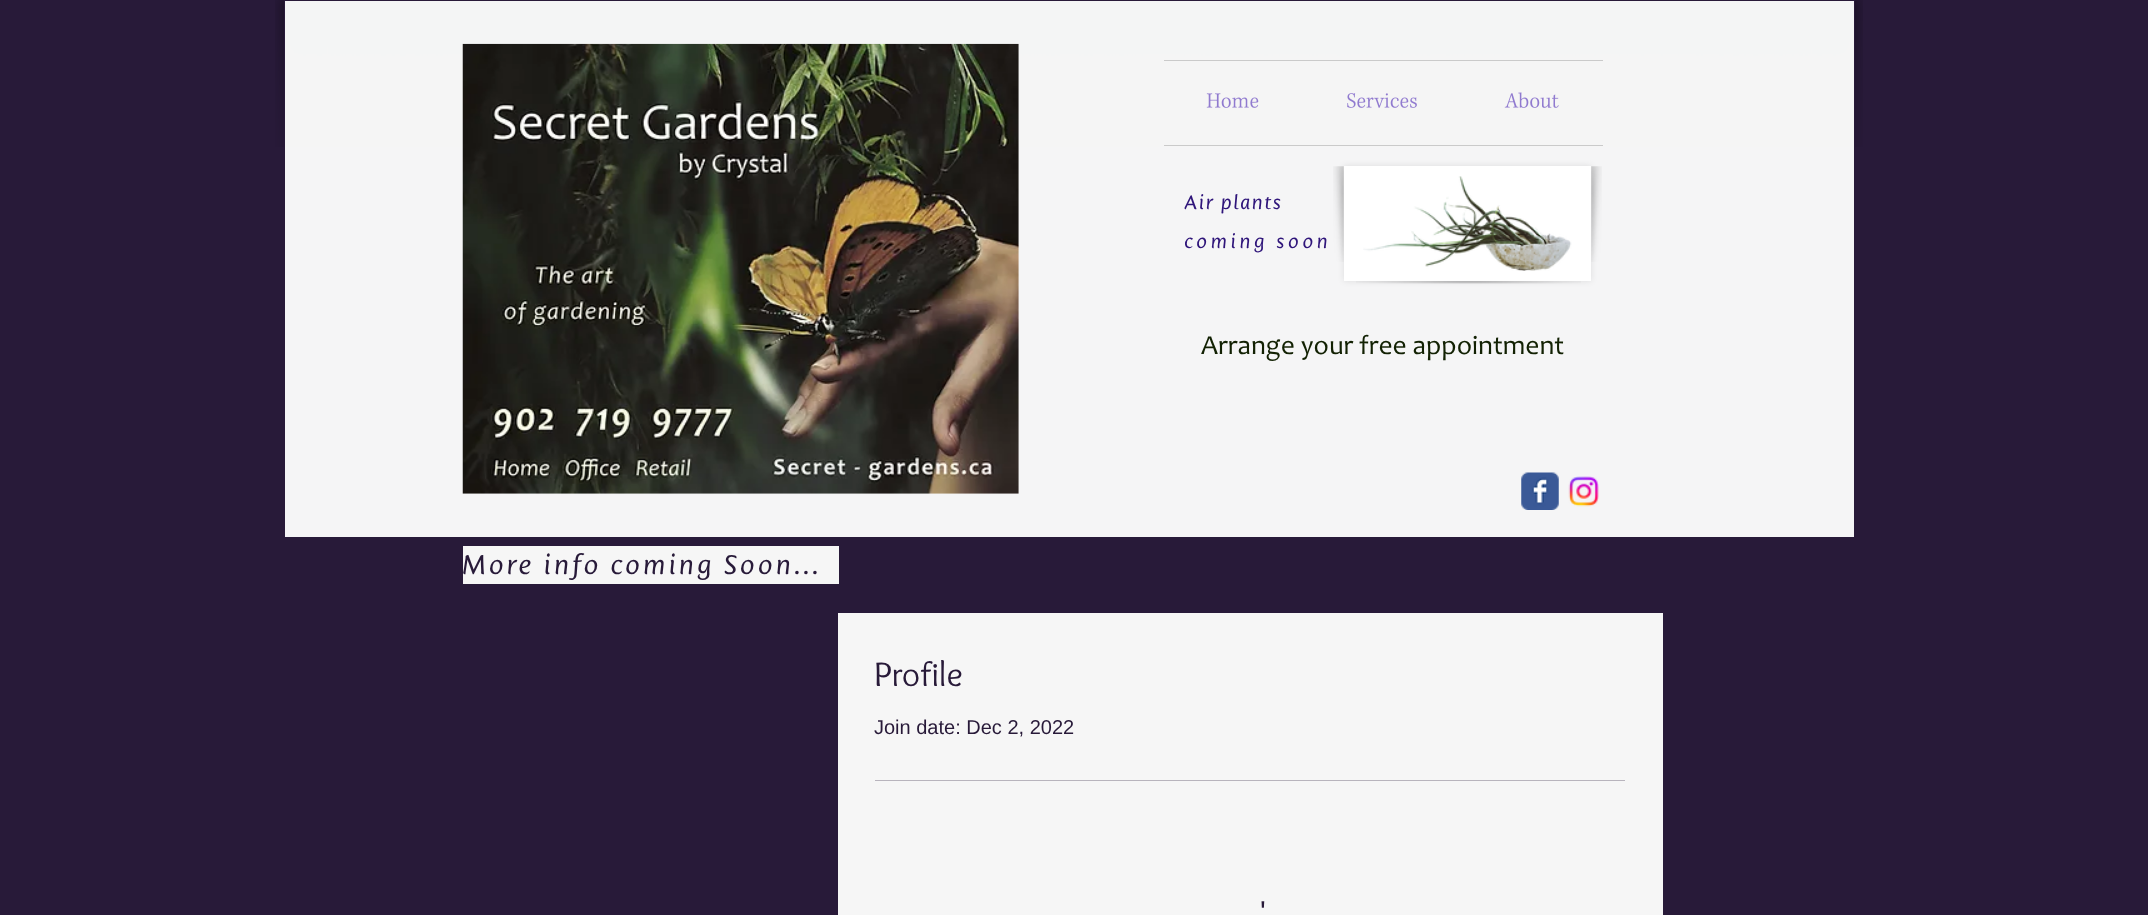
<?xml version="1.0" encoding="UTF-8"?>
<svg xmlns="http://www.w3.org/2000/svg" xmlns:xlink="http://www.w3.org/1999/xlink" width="2148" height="915">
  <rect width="100%" height="100%" fill="#281a39" />
  <image x="275" y="0" width="53" height="147" xlink:href="image1.png" />
  <image x="327" y="1" width="1485" height="146" xlink:href="image2.png" />
  <image x="1811" y="0" width="52" height="147" xlink:href="image3.png" />
  <rect x="284.5" y="0.5" width="1570" height="537" fill="#fcfdfc" fill-opacity="0.97" stroke="#281a39" />
  <image x="462" y="43" width="557" height="451" xlink:href="image4.png" />
  <rect x="1164" y="60" width="439" height="1" fill="#cacaca" />
  <rect x="1164" y="145" width="439" height="1" fill="#cacaca" />
  <image x="1206" y="93" width="53" height="15" xlink:href="image5.png" />
  <image x="1347" y="93" width="70" height="15" xlink:href="image6.png" />
  <image x="1504" y="92" width="55" height="16" xlink:href="image7.png" />
  <rect x="1344" y="166" width="247" height="115" fill="#000000" fill-opacity="0.1" filter="blur(3px)" />
  <rect x="1344" y="166" width="247" height="115" fill="#ffffff" />
  <image x="1363" y="176" width="209" height="95" xlink:href="image8.png" />
  <image x="1356" y="281" width="225" height="3" xlink:href="image9.png" />
  <image x="1333" y="166" width="11" height="96" xlink:href="image10.png" />
  <image x="1591" y="166" width="11" height="96" xlink:href="image11.png" />
  <image x="1521" y="472" width="38" height="38" xlink:href="image12.png" />
  <image x="1568" y="476" width="31" height="31" xlink:href="image13.png" />
  <rect x="463" y="546" width="376" height="38" fill="#f6f6f6" />
  <rect x="838" y="613" width="825" height="302" fill="#f6f6f6" />
  <rect x="875" y="780" width="750" height="1" fill="#b8b4bd" />
  <text x="1184" y="209" style="font-family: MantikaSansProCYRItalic; font-size: 20px; font-style: italic; letter-spacing: 1px; fill: #2f157a">Air plants</text>
  <text x="1184" y="248" style="font-family: MantikaSansProCYRItalic; font-size: 20px; font-style: italic; letter-spacing: 3px; fill: #2f157a">coming soon</text>
  <text x="1201" y="354" style="font-family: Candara; font-size: 27.5px; fill: #122103">Arrange your free appointment</text>
  <text x="462" y="574" style="font-family: MantikaSansProCYRItalic; font-size: 27.5px; font-style: italic; letter-spacing: 2.2px; fill: #281a39">More info coming Soon...</text>
  <text x="874" y="686" style="font-family: Overlock; font-size: 35px; fill: #281a39">Profile</text>
  <text x="874" y="734" style="font-family: Liberation Sans; font-size: 20px; fill: #281a39">Join date: Dec 2, 2022</text>
  <text x="1260" y="922" style="font-family: Liberation Sans; font-size: 30px; fill: #281a39">'</text>
</svg>
